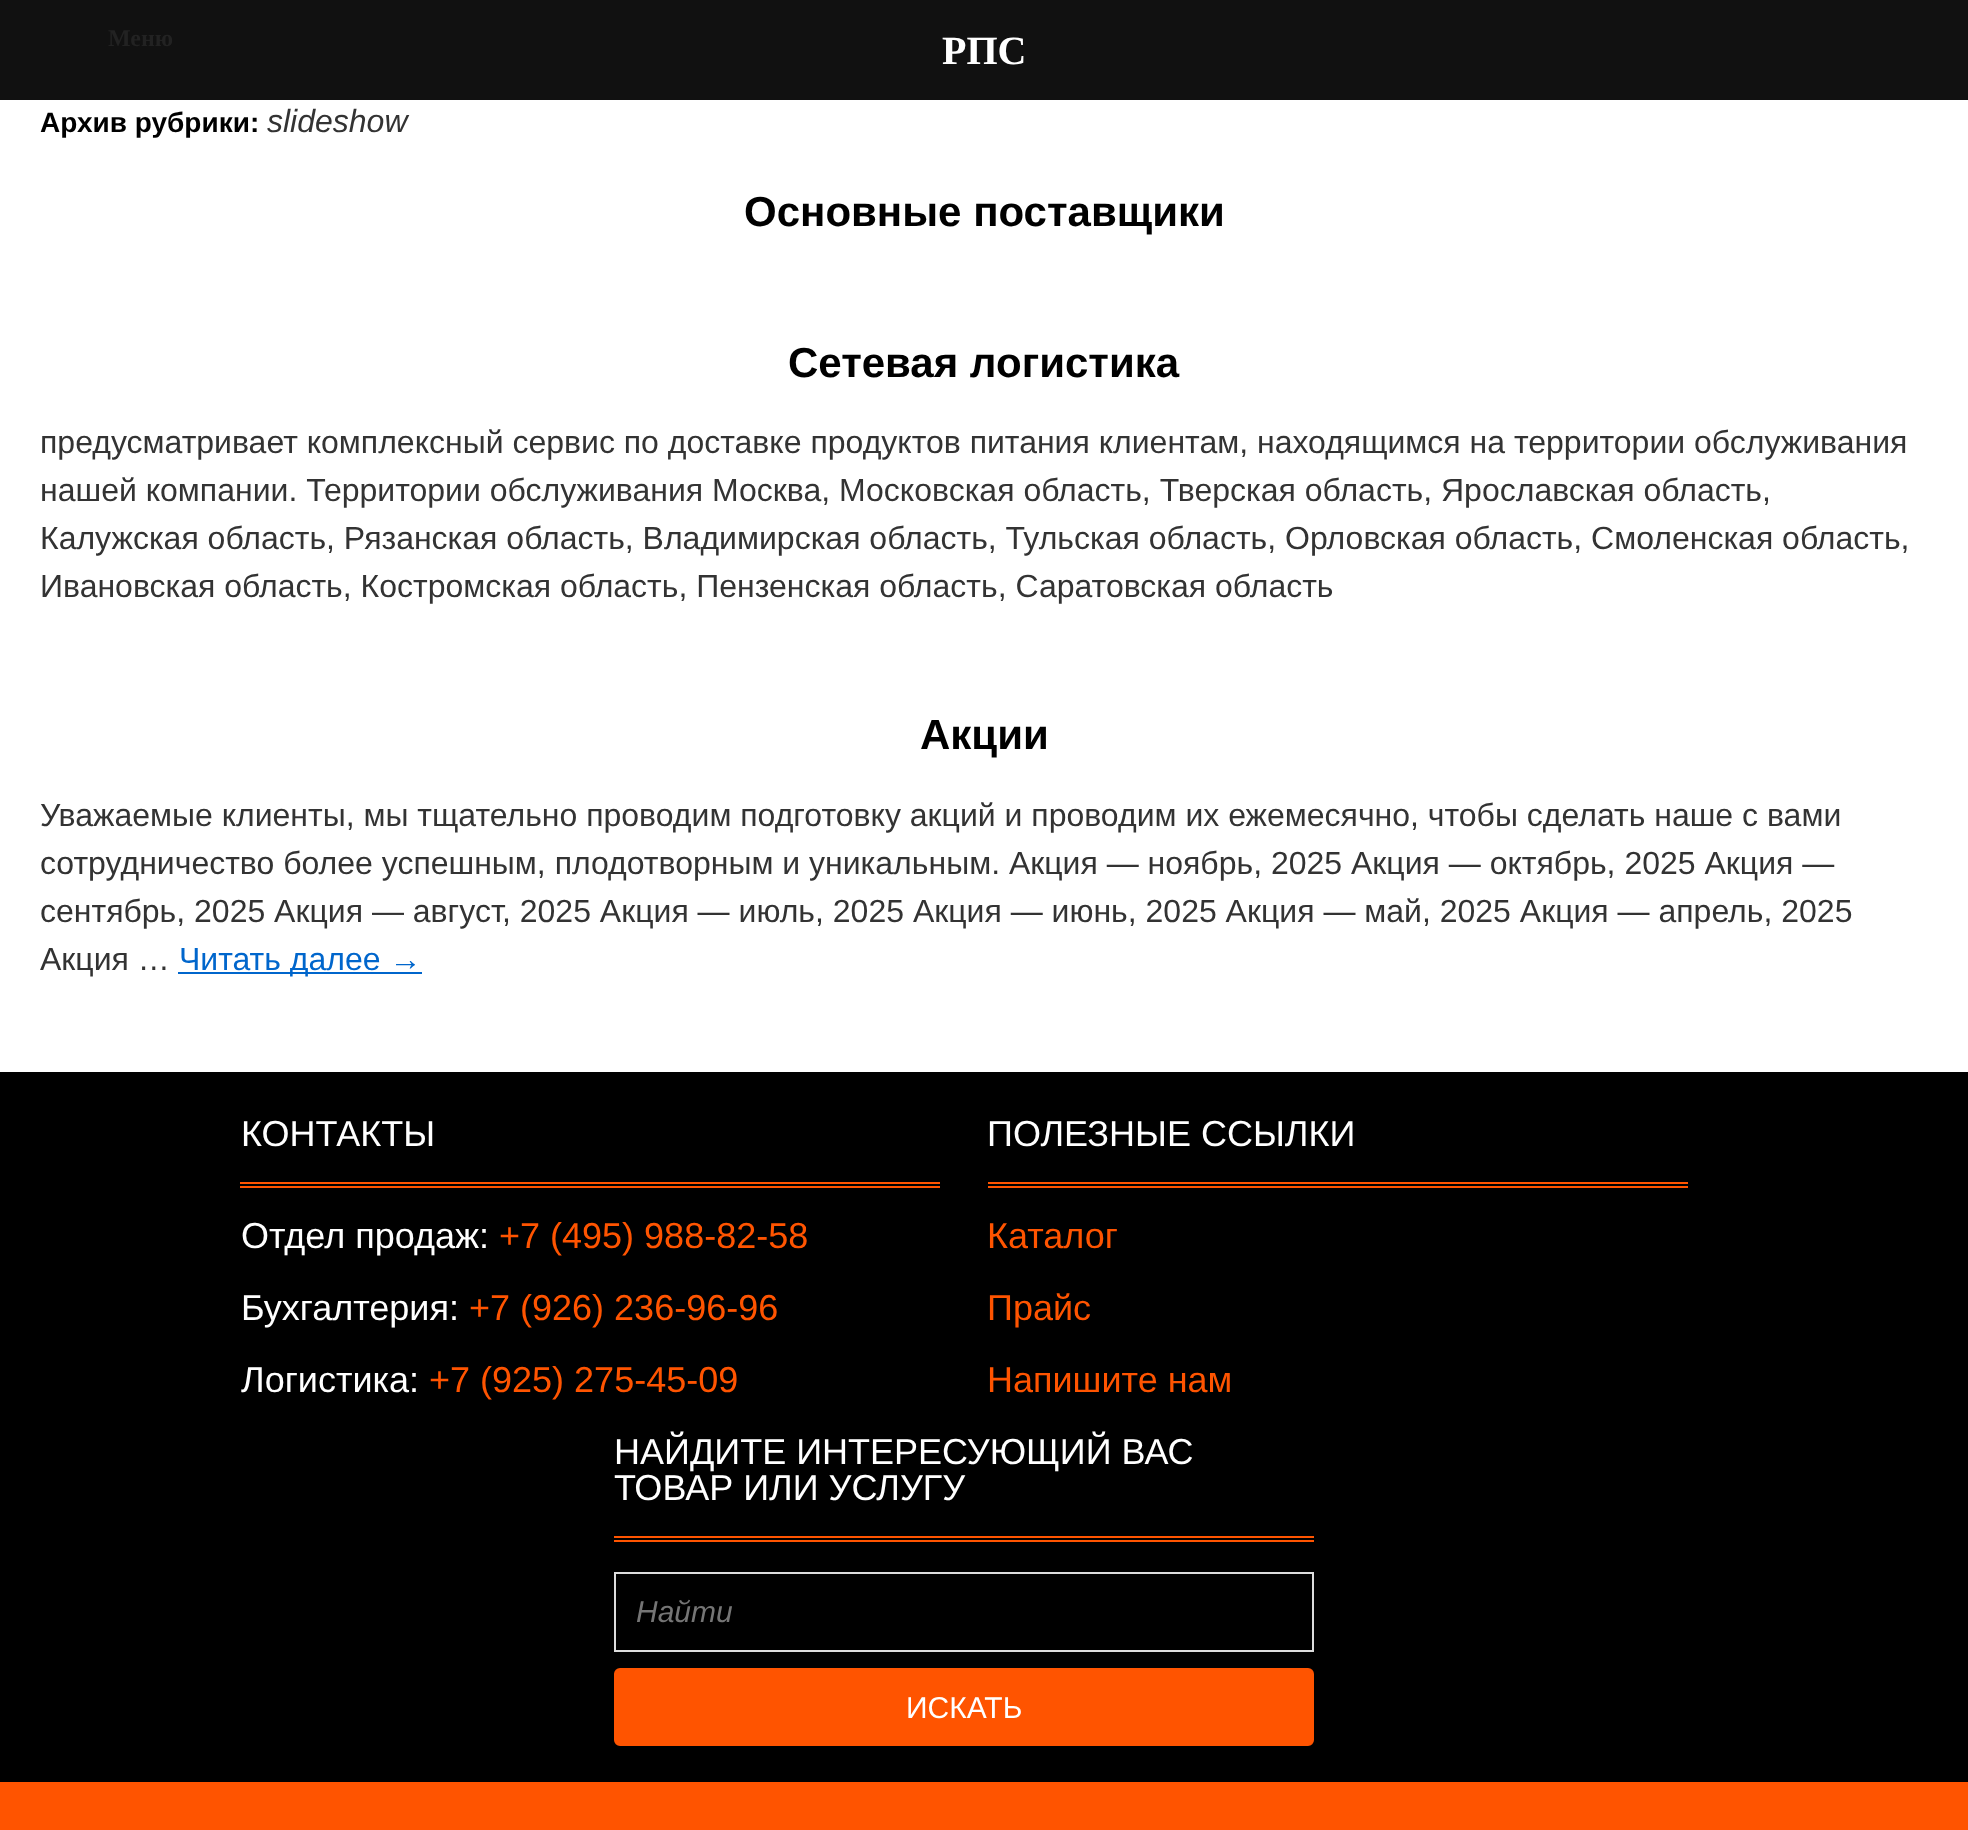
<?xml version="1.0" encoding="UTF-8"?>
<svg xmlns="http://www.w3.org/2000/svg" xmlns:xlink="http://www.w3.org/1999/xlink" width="1968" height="1830">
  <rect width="100%" height="100%" fill="#ffffff" />
  <rect width="1968" height="100" fill="#111111" />
  <rect x="178" y="972" width="244" height="2" fill="#0066cc" />
  <rect y="1072" width="1968" height="710" fill="#000000" />
  <rect x="240" y="1182" width="700" height="2" fill="#ff5400" />
  <rect x="240" y="1186" width="700" height="2" fill="#ff5400" />
  <rect x="988" y="1182" width="700" height="2" fill="#ff5400" />
  <rect x="988" y="1186" width="700" height="2" fill="#ff5400" />
  <rect x="614" y="1536" width="700" height="2" fill="#ff5400" />
  <rect x="614" y="1540" width="700" height="2" fill="#ff5400" />
  <rect x="615" y="1573" width="698" height="78" fill="none" stroke="#dddddd" stroke-width="2" />
  <rect x="615" y="1669" width="698" height="76" rx="5" fill="#ff5400" stroke="#ff5400" stroke-width="2" />
  <rect y="1782" width="1968" height="48" fill="#ff5400" />
  <text x="108" y="46" style="font-family: Liberation Serif; font-size: 24px; font-weight: bold; fill: #222222">Меню</text>
  <text x="942" y="64" style="font-family: Liberation Serif; font-size: 40px; font-weight: bold; fill: #ffffff">РПС</text>
  <text x="40" y="132" style="font-family: Liberation Sans; font-size: 28px; font-weight: bold; fill: #000000">Архив рубрики:</text>
  <text x="267" y="132" style="font-family: Liberation Sans; font-size: 32px; font-style: italic; fill: #333333">slideshow</text>
  <text x="744" y="226" style="font-family: Liberation Sans; font-size: 42px; font-weight: bold; fill: #000000">Основные поставщики</text>
  <text x="788" y="377" style="font-family: Liberation Sans; font-size: 42px; font-weight: bold; fill: #000000">Сетевая логистика</text>
  <text x="40" y="453" style="font-family: Liberation Sans; font-size: 32px; fill: #333333">предусматривает комплексный сервис по доставке продуктов питания клиентам, находящимся на территории обслуживания</text>
  <text x="40" y="501" style="font-family: Liberation Sans; font-size: 32px; fill: #333333">нашей компании. Территории обслуживания Москва, Московская область, Тверская область, Ярославская область,</text>
  <text x="40" y="549" style="font-family: Liberation Sans; font-size: 32px; fill: #333333">Калужская область, Рязанская область, Владимирская область, Тульская область, Орловская область, Смоленская область,</text>
  <text x="40" y="597" style="font-family: Liberation Sans; font-size: 32px; fill: #333333">Ивановская область, Костромская область, Пензенская область, Саратовская область</text>
  <text x="920" y="749" style="font-family: Liberation Sans; font-size: 42px; font-weight: bold; fill: #000000">Акции</text>
  <text x="40" y="826" style="font-family: Liberation Sans; font-size: 32px; fill: #333333">Уважаемые клиенты, мы тщательно проводим подготовку акций и проводим их ежемесячно, чтобы сделать наше с вами</text>
  <text x="40" y="874" style="font-family: Liberation Sans; font-size: 32px; fill: #333333">сотрудничество более успешным, плодотворным и уникальным. Акция — ноябрь, 2025 Акция — октябрь, 2025 Акция —</text>
  <text x="40" y="922" style="font-family: Liberation Sans; font-size: 32px; fill: #333333">сентябрь, 2025 Акция — август, 2025 Акция — июль, 2025 Акция — июнь, 2025 Акция — май, 2025 Акция — апрель, 2025</text>
  <text x="40" y="970" style="font-family: Liberation Sans; font-size: 32px; fill: #333333">Акция …</text>
  <text x="179" y="970" style="font-family: Liberation Sans; font-size: 32px; fill: #0066cc">Читать далее →</text>
  <text x="241" y="1146" style="font-family: Liberation Sans; font-size: 36px; fill: #ffffff">КОНТАКТЫ</text>
  <text x="241" y="1248" style="font-family: Liberation Sans; font-size: 36px; fill: #ffffff">Отдел продаж:</text>
  <text x="499" y="1248" style="font-family: Liberation Sans; font-size: 36px; fill: #ff5400">+7 (495) 988-82-58</text>
  <text x="241" y="1320" style="font-family: Liberation Sans; font-size: 36px; fill: #ffffff">Бухгалтерия:</text>
  <text x="469" y="1320" style="font-family: Liberation Sans; font-size: 36px; fill: #ff5400">+7 (926) 236-96-96</text>
  <text x="241" y="1392" style="font-family: Liberation Sans; font-size: 36px; fill: #ffffff">Логистика:</text>
  <text x="429" y="1392" style="font-family: Liberation Sans; font-size: 36px; fill: #ff5400">+7 (925) 275-45-09</text>
  <text x="987" y="1146" style="font-family: Liberation Sans; font-size: 36px; fill: #ffffff">ПОЛЕЗНЫЕ ССЫЛКИ</text>
  <text x="987" y="1248" style="font-family: Liberation Sans; font-size: 36px; fill: #ff5400">Каталог</text>
  <text x="987" y="1320" style="font-family: Liberation Sans; font-size: 36px; fill: #ff5400">Прайс</text>
  <text x="987" y="1392" style="font-family: Liberation Sans; font-size: 36px; fill: #ff5400">Напишите нам</text>
  <text x="614" y="1464" style="font-family: Liberation Sans; font-size: 36px; fill: #ffffff">НАЙДИТЕ ИНТЕРЕСУЮЩИЙ ВАС</text>
  <text x="614" y="1500" style="font-family: Liberation Sans; font-size: 36px; fill: #ffffff">ТОВАР ИЛИ УСЛУГУ</text>
  <text x="636" y="1622" style="font-family: Liberation Sans; font-size: 30px; font-style: italic; fill: #757575">Найти</text>
  <text x="906" y="1718" style="font-family: Liberation Sans; font-size: 30px; fill: #ffffff">ИСКАТЬ</text>
</svg>
